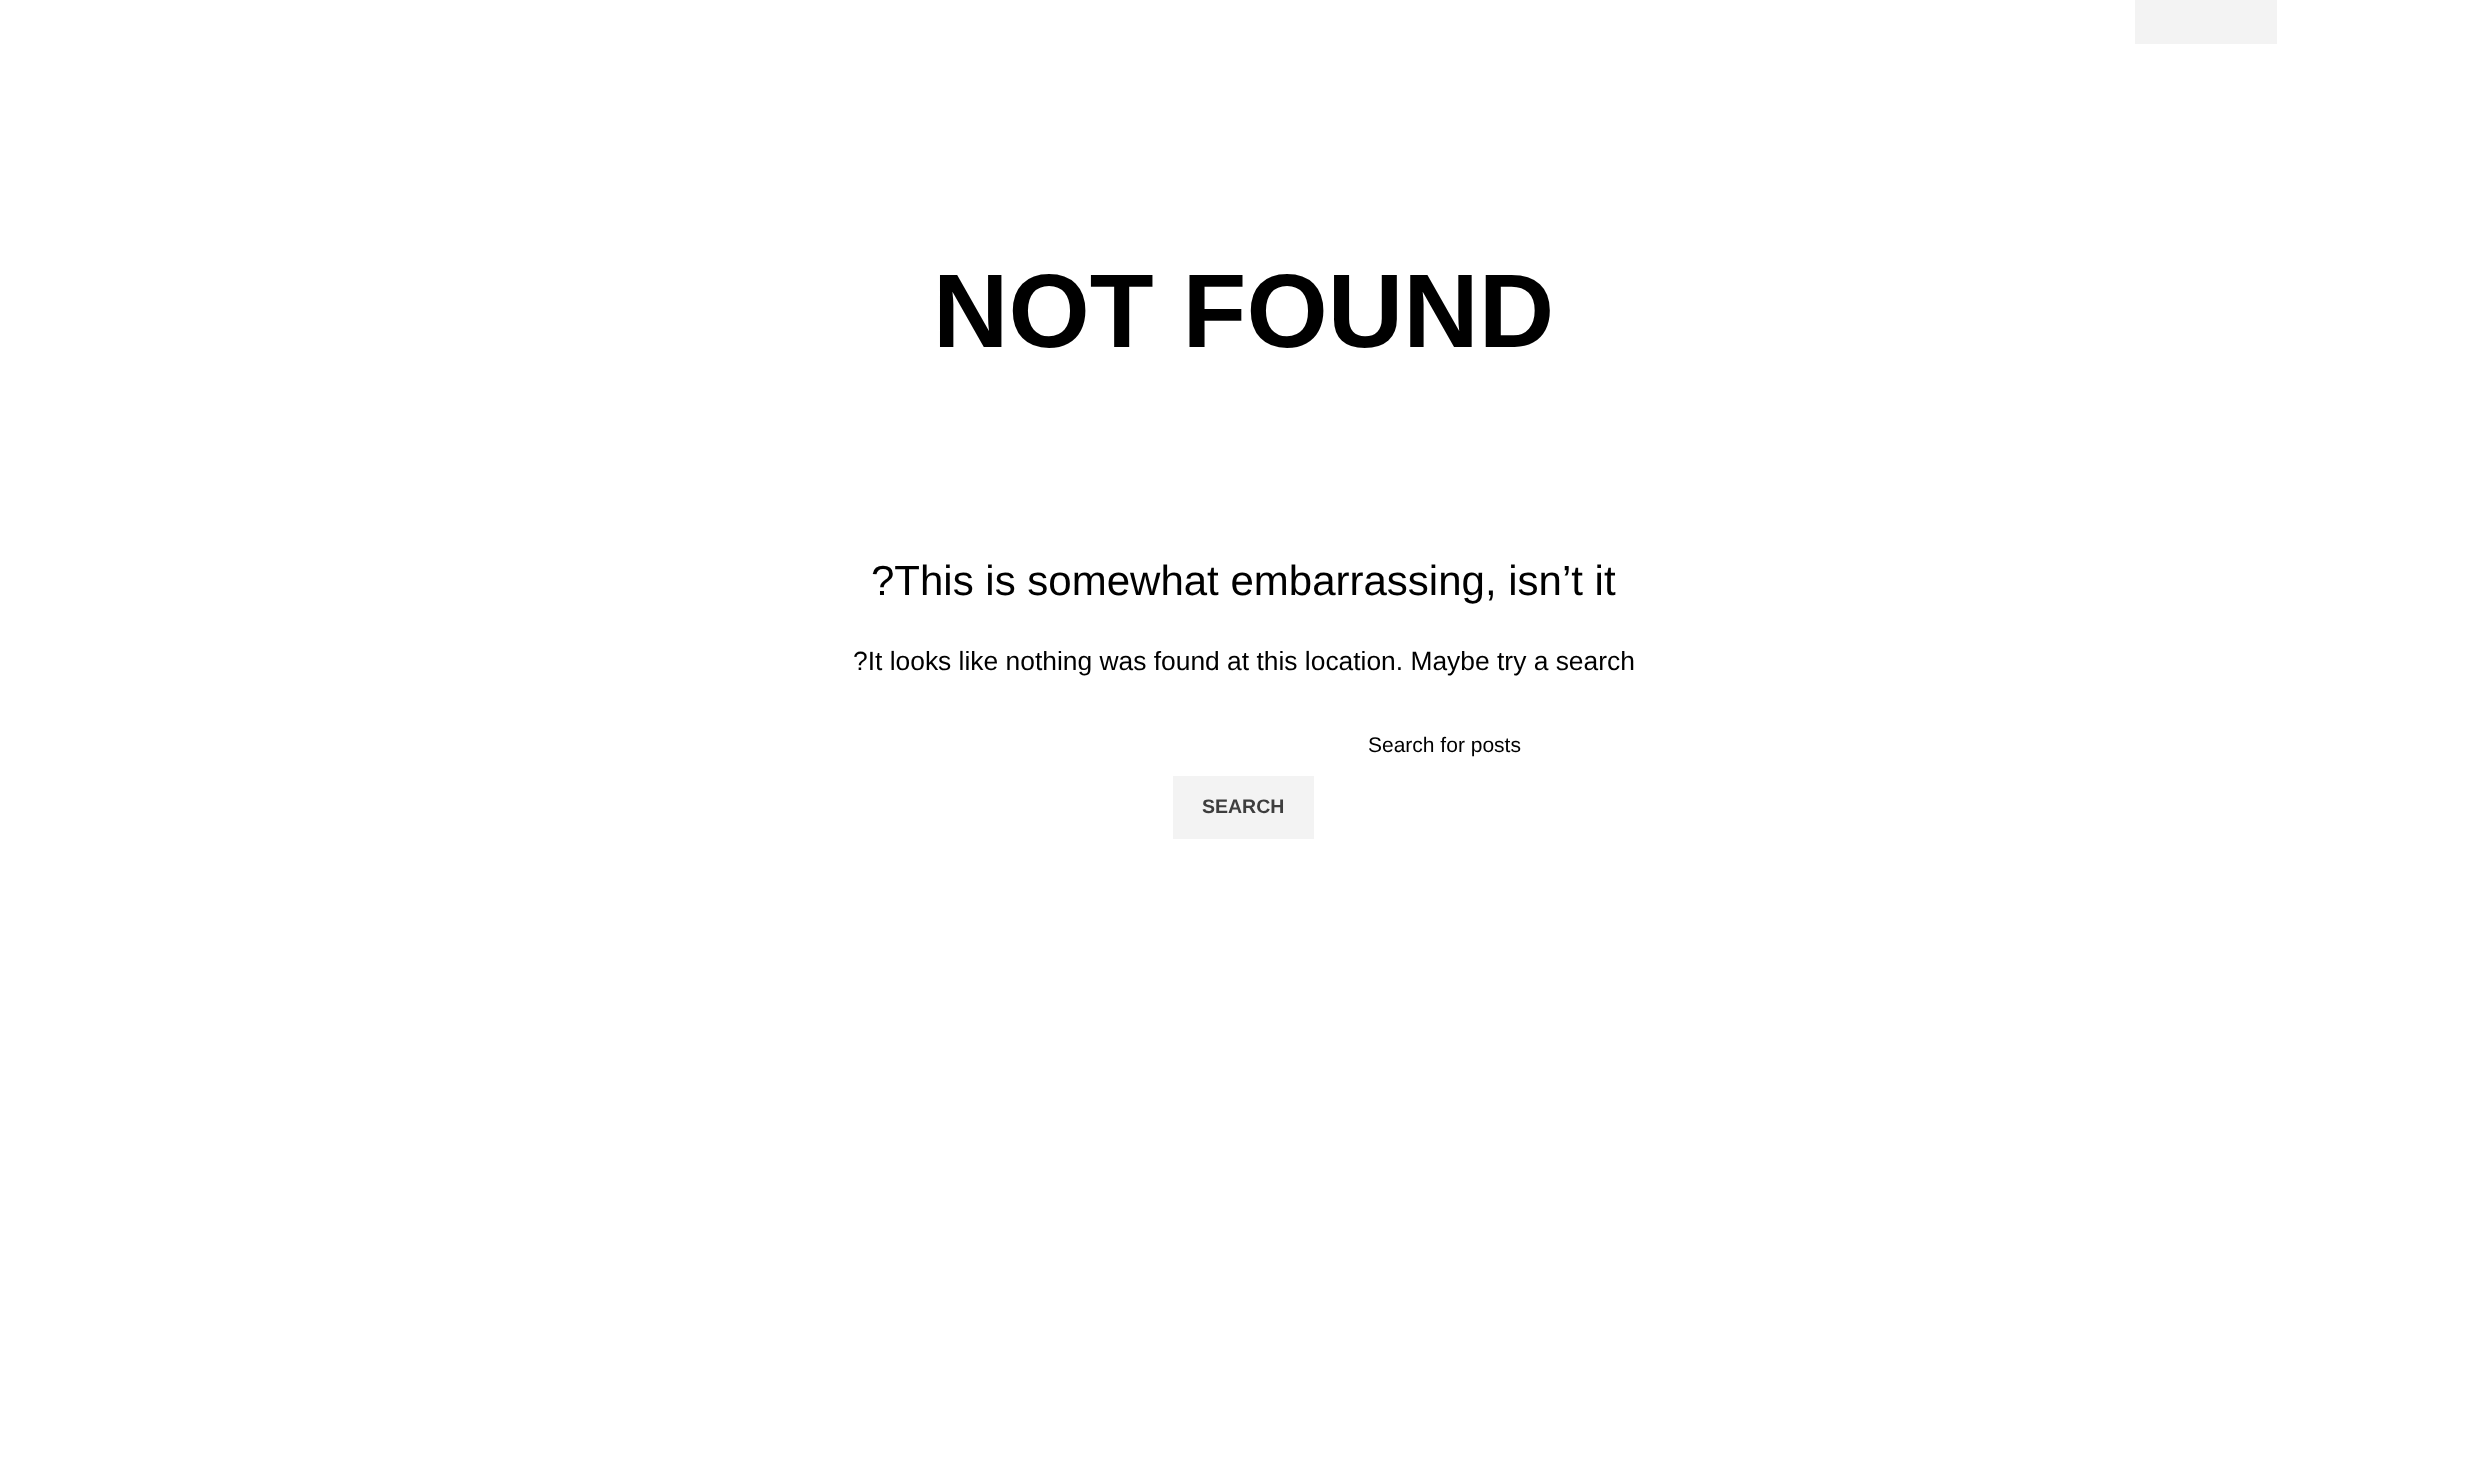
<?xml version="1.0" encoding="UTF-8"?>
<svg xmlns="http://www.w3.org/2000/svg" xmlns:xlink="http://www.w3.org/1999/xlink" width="2486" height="1479">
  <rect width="100%" height="100%" fill="#ffffff" />
  <rect x="2135" width="142" height="44" fill="#f3f3f3" />
  <rect x="1173" y="776" width="141" height="63" fill="#f3f3f3" />
  <text x="933" y="347" style="font-family: Liberation Sans; font-size: 104.5px; font-weight: bold; fill: #000000">NOT FOUND</text>
  <text x="871" y="595" style="font-family: Liberation Sans; font-size: 42px; fill: #000000">?This is somewhat embarrassing, isn’t it</text>
  <text x="853" y="670" style="font-family: Liberation Sans; font-size: 26.4px; fill: #000000">?It looks like nothing was found at this location. Maybe try a search</text>
  <text x="1368" y="752" style="font-family: Liberation Sans; font-size: 21px; fill: #000000">Search for posts</text>
  <text x="1202" y="813" style="font-family: Liberation Sans; font-size: 19.5px; font-weight: bold; fill: #3e3e3e">SEARCH</text>
</svg>
